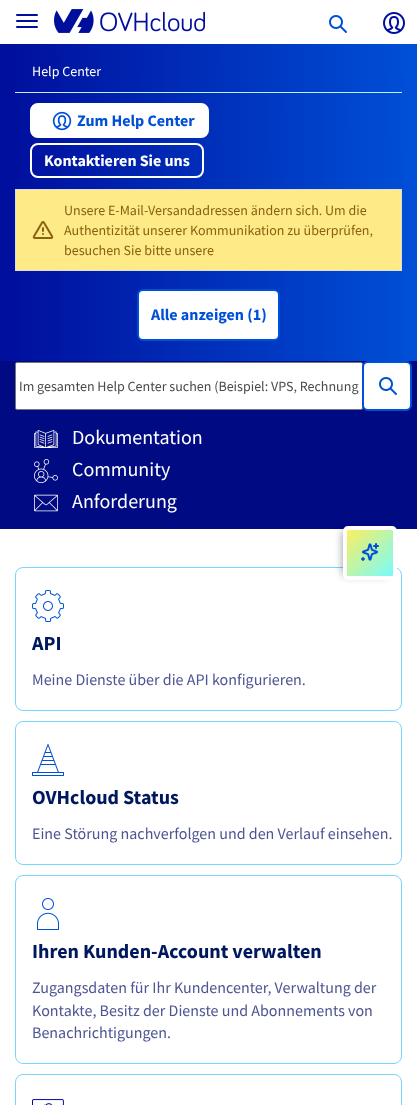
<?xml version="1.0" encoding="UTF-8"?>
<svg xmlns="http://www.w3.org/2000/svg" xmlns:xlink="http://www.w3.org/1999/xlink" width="417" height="1105">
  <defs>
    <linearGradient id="g1" gradientUnits="userSpaceOnUse" x1="347" y1="530" x2="393" y2="576"><stop offset="0" stop-color="#fdef61" /><stop offset="1" stop-color="#77fbfb" /></linearGradient>
    <linearGradient id="g2" gradientUnits="userSpaceOnUse" x1="0" y1="95" x2="417" y2="94"><stop offset="0" stop-color="#000e9c" /><stop offset="1" stop-color="#0050d7" /></linearGradient>
    <linearGradient id="g3" gradientUnits="userSpaceOnUse" x1="0" y1="275" x2="417" y2="275"><stop offset="0" stop-color="#000e9c" /><stop offset="1" stop-color="#0050d7" /></linearGradient>
  </defs>
  <rect width="100%" height="100%" fill="#ffffff" />
  <rect x="16" y="14" width="22" height="2" rx="1" fill="#000e9c" />
  <rect x="16" y="20" width="22" height="2" rx="1" fill="#000e9c" />
  <rect x="16" y="26" width="22" height="2" rx="1" fill="#000e9c" />
  <image x="54" y="9" width="151" height="24" xlink:href="image1.png" />
  <image x="329" y="15" width="18" height="18" xlink:href="image2.png" />
  <image x="383" y="12" width="22" height="22" xlink:href="image3.png" />
  <rect y="361" width="417" height="168" fill="#000a83" />
  <rect x="15.5" y="567.5" width="386" height="143" rx="7.5" fill="none" stroke="#7ad4fd" />
  <rect x="343" y="531" width="44" height="44" fill="#000d1f" fill-opacity="0.45" filter="blur(4px)" />
  <rect x="347" y="530" width="46" height="46" fill="url(#g1)" />
  <rect x="345" y="528" width="50" height="50" rx="3" fill="none" stroke="#ffffff" stroke-width="4" />
  <image x="361" y="543" width="18" height="18" xlink:href="image4.png" />
  <rect y="44" width="417" height="144" fill="url(#g2)" />
  <rect x="15" y="92" width="387" height="1" fill="#bef1ff" />
  <rect x="31" y="104" width="177" height="33" rx="7" fill="#ffffff" stroke="#ffffff" stroke-width="2" />
  <image x="52" y="111" width="20" height="20" xlink:href="image5.png" />
  <rect x="31" y="144" width="172" height="33" rx="7" fill="none" stroke="#ffffff" stroke-width="2" />
  <rect y="188" width="417" height="173" fill="url(#g3)" />
  <rect x="15.5" y="189.5" width="386" height="81" fill="#feea86" stroke="#dddddd" />
  <image x="32" y="221" width="22" height="18" xlink:href="image6.png" />
  <rect x="138" y="290" width="141" height="50" rx="5" fill="#ffffff" stroke="#0050d7" stroke-width="2" />
  <rect x="15.5" y="362.5" width="347" height="47" rx="1.5" fill="#ffffff" stroke="#767676" />
  <rect x="363" y="362" width="48" height="48" rx="5" fill="#ffffff" stroke="#0050d7" stroke-width="2" />
  <image x="379" y="377" width="18" height="18" xlink:href="image2.png" />
  <image x="34" y="430" width="24" height="18" xlink:href="image7.png" />
  <image x="34" y="459" width="24" height="24" xlink:href="image8.png" />
  <image x="34" y="494" width="24" height="18" xlink:href="image9.png" />
  <image x="32" y="590" width="32" height="32" xlink:href="image10.png" />
  <rect x="15.5" y="721.5" width="386" height="143" rx="7.5" fill="none" stroke="#7ad4fd" />
  <image x="32" y="744" width="32" height="32" xlink:href="image11.png" />
  <rect x="15.5" y="875.5" width="386" height="188" rx="7.5" fill="none" stroke="#7ad4fd" />
  <image x="37" y="898" width="22" height="32" xlink:href="image12.png" />
  <rect x="15.5" y="1074.5" width="386" height="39" rx="7.5" fill="none" stroke="#7ad4fd" />
  <image x="32" y="1099" width="32" height="6" xlink:href="image13.png" />
  <text x="32" y="76" style="font-family: Source Sans Pro; font-size: 14px; fill: #ffffff">Help Center</text>
  <text x="77" y="126" style="font-family: Source Sans Pro; font-size: 16px; font-weight: bold; fill: #0050d7">Zum Help Center</text>
  <text x="44" y="166" style="font-family: Source Sans Pro; font-size: 16px; font-weight: bold; fill: #ffffff">Kontaktieren Sie uns</text>
  <text x="64" y="215" style="font-family: Source Sans Pro; font-size: 14px; fill: #8b6111">Unsere E-Mail-Versandadressen ändern sich. Um die</text>
  <text x="64" y="235" style="font-family: Source Sans Pro; font-size: 14px; fill: #8b6111">Authentizität unserer Kommunikation zu überprüfen,</text>
  <text x="64" y="255" style="font-family: Source Sans Pro; font-size: 14px; fill: #8b6111">besuchen Sie bitte unsere</text>
  <text x="151" y="320" style="font-family: Source Sans Pro; font-size: 16px; font-weight: bold; fill: #0050d7">Alle anzeigen (1)</text>
  <text x="19" y="391" style="font-family: Source Sans Pro; font-size: 14px; fill: #4a4a4a">Im gesamten Help Center suchen (Beispiel: VPS, Rechnung</text>
  <text x="72" y="444" style="font-family: Source Sans Pro; font-size: 20px; fill: #ffffff">Dokumentation</text>
  <text x="72" y="476" style="font-family: Source Sans Pro; font-size: 20px; fill: #ffffff">Community</text>
  <text x="72" y="508" style="font-family: Source Sans Pro; font-size: 20px; fill: #ffffff">Anforderung</text>
  <text x="32" y="650" style="font-family: Source Sans Pro; font-size: 20px; font-weight: bold; fill: #00185e">API</text>
  <text x="32" y="685" style="font-family: Source Sans Pro; font-size: 16px; fill: #4d5592">Meine Dienste über die API konfigurieren.</text>
  <text x="32" y="804" style="font-family: Source Sans Pro; font-size: 20px; font-weight: bold; fill: #00185e">OVHcloud Status</text>
  <text x="32" y="839" style="font-family: Source Sans Pro; font-size: 16px; fill: #4d5592">Eine Störung nachverfolgen und den Verlauf einsehen.</text>
  <text x="32" y="958" style="font-family: Source Sans Pro; font-size: 20px; font-weight: bold; fill: #00185e">Ihren Kunden-Account verwalten</text>
  <text x="32" y="993" style="font-family: Source Sans Pro; font-size: 16px; fill: #4d5592">Zugangsdaten für Ihr Kundencenter, Verwaltung der</text>
  <text x="32" y="1016" style="font-family: Source Sans Pro; font-size: 16px; fill: #4d5592">Kontakte, Besitz der Dienste und Abonnements von</text>
  <text x="32" y="1038" style="font-family: Source Sans Pro; font-size: 16px; fill: #4d5592">Benachrichtigungen.</text>
</svg>
